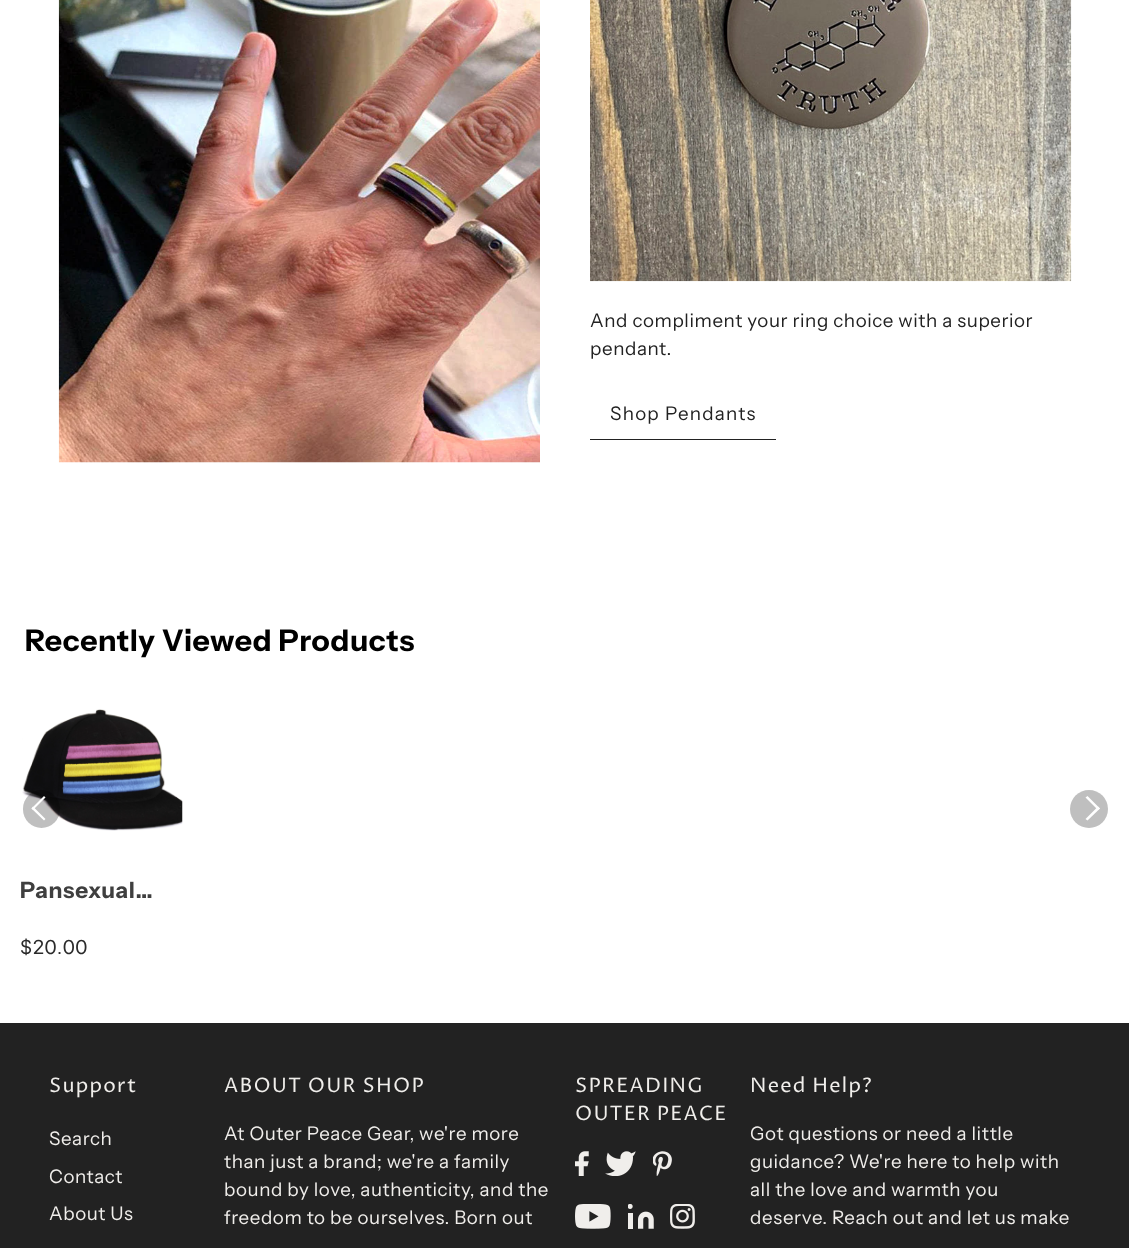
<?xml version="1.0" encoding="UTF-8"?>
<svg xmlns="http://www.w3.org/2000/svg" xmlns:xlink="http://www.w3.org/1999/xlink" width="1129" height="1248">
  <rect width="100%" height="100%" fill="#ffffff" />
  <image x="58" y="0" width="482" height="463" xlink:href="image1.png" />
  <image x="590" y="0" width="482" height="282" xlink:href="image2.png" />
  <rect x="590" y="439" width="186" height="1" fill="#222222" />
  <image x="22" y="709" width="161" height="122" xlink:href="image3.png" />
  <rect x="23" y="790" width="37" height="38" rx="18.5" fill="#000000" fill-opacity="0.25" />
  <path d="M 33 806.5 l 12.5 12.5 l -1.5 1.5 l -12.5 -12 z" fill="#ffffff" />
  <path d="M 44 796 l 1.5 1.5 l -12.5 12.5 l -1.5 -1.5 z" fill="#ffffff" />
  <circle cx="1089" cy="809" r="19" fill="#bfbfbf" />
  <path d="M 1098 810 l -12.5 -12.5 l 2 -1.5 l 12.5 12.5 z" fill="#ffffff" />
  <path d="M 1087.5 820.5 l -2 -1.5 l 12.5 -12.5 l 2 2 z" fill="#ffffff" />
  <rect y="1023" width="1129" height="225" fill="#222222" />
  <image x="575" y="1151" width="14" height="25" xlink:href="image4.png" />
  <image x="605" y="1151" width="31" height="25" xlink:href="image5.png" />
  <image x="653" y="1151" width="19" height="25" xlink:href="image6.png" />
  <image x="575" y="1204" width="36" height="25" xlink:href="image7.png" />
  <image x="628" y="1204" width="26" height="25" xlink:href="image8.png" />
  <image x="670" y="1204" width="25" height="25" xlink:href="image9.png" />
  <text x="590" y="327" style="font-family: Instrument Sans; font-size: 18.75px; letter-spacing: 0.6px; fill: #222222">And compliment your ring choice with a superior</text>
  <text x="590" y="355" style="font-family: Instrument Sans; font-size: 18.75px; letter-spacing: 0.6px; fill: #222222">pendant.</text>
  <text x="610" y="420" style="font-family: Instrument Sans; font-size: 18.75px; letter-spacing: 1.25px; fill: #222222">Shop Pendants</text>
  <text x="25" y="651" style="font-family: Instrument Sans; font-size: 30px; font-weight: bold; letter-spacing: 0.6px; fill: #000000">Recently Viewed Products</text>
  <text x="20" y="898" style="font-family: Instrument Sans; font-size: 22.5px; font-weight: bold; letter-spacing: 0.6px; fill: #3f3f3f">Pansexual…</text>
  <text x="20" y="954" style="font-family: SF Pro Display; font-size: 20px; letter-spacing: 0.6px; fill: #2b2b2b">$20.00</text>
  <text x="49" y="1092" style="font-family: Proza Libre; font-size: 20px; letter-spacing: 1.25px; fill: #f0eeeb">Support</text>
  <text x="49" y="1145" style="font-family: Instrument Sans; font-size: 18.75px; letter-spacing: 0.6px; fill: #f0eeeb">Search</text>
  <text x="49" y="1183" style="font-family: Instrument Sans; font-size: 18.75px; letter-spacing: 0.6px; fill: #f0eeeb">Contact</text>
  <text x="49" y="1220" style="font-family: Instrument Sans; font-size: 18.75px; letter-spacing: 0.6px; fill: #f0eeeb">About Us</text>
  <text x="224" y="1092" style="font-family: Proza Libre; font-size: 20px; letter-spacing: 1.25px; fill: #f0eeeb">ABOUT OUR SHOP</text>
  <text x="224" y="1140" style="font-family: Instrument Sans; font-size: 18.75px; letter-spacing: 0.6px; fill: #f0eeeb">At Outer Peace Gear, we're more</text>
  <text x="224" y="1168" style="font-family: Instrument Sans; font-size: 18.75px; letter-spacing: 0.6px; fill: #f0eeeb">than just a brand; we're a family</text>
  <text x="224" y="1196" style="font-family: Instrument Sans; font-size: 18.75px; letter-spacing: 0.6px; fill: #f0eeeb">bound by love, authenticity, and the</text>
  <text x="224" y="1224" style="font-family: Instrument Sans; font-size: 18.75px; letter-spacing: 0.6px; fill: #f0eeeb">freedom to be ourselves. Born out</text>
  <text x="575" y="1092" style="font-family: Proza Libre; font-size: 20px; letter-spacing: 1.25px; fill: #f0eeeb">SPREADING</text>
  <text x="575" y="1120" style="font-family: Proza Libre; font-size: 20px; letter-spacing: 1.25px; fill: #f0eeeb">OUTER PEACE</text>
  <text x="750" y="1092" style="font-family: Proza Libre; font-size: 20px; letter-spacing: 1.25px; fill: #f0eeeb">Need Help?</text>
  <text x="750" y="1140" style="font-family: Instrument Sans; font-size: 18.75px; letter-spacing: 0.6px; fill: #f0eeeb">Got questions or need a little</text>
  <text x="750" y="1168" style="font-family: Instrument Sans; font-size: 18.75px; letter-spacing: 0.6px; fill: #f0eeeb">guidance? We're here to help with</text>
  <text x="750" y="1196" style="font-family: Instrument Sans; font-size: 18.75px; letter-spacing: 0.6px; fill: #f0eeeb">all the love and warmth you</text>
  <text x="750" y="1224" style="font-family: Instrument Sans; font-size: 18.75px; letter-spacing: 0.6px; fill: #f0eeeb">deserve. Reach out and let us make</text>
</svg>
